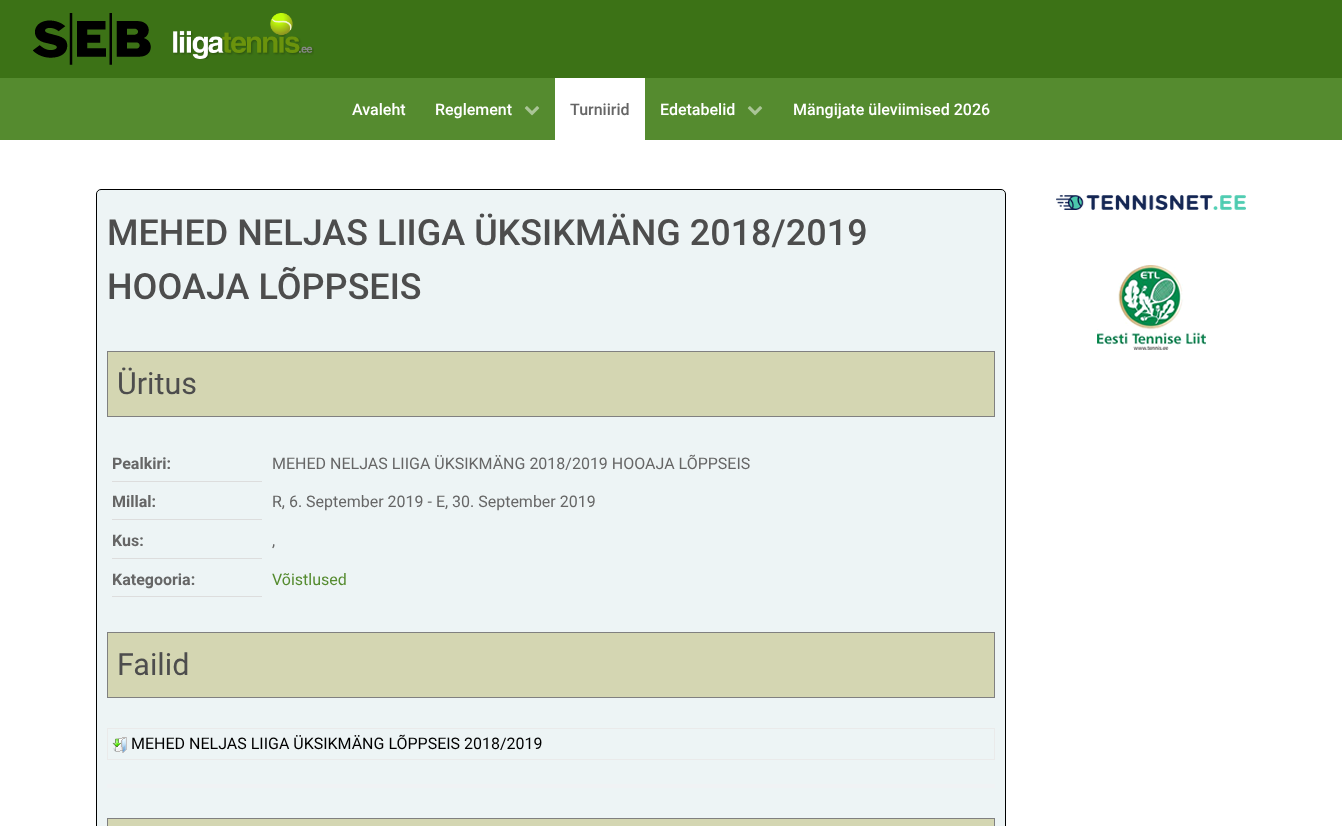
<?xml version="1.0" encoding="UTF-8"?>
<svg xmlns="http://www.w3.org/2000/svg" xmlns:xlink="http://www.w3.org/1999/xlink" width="1342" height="826">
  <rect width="100%" height="100%" fill="#ffffff" />
  <rect width="1342" height="78" fill="#3c7216" />
  <image x="33" y="13" width="118" height="52" xlink:href="image1.png" />
  <image x="173" y="13" width="141" height="46" xlink:href="image2.png" />
  <rect y="78" width="1342" height="62" fill="#558b2f" />
  <image x="524" y="106" width="16" height="10" xlink:href="image3.png" />
  <rect x="555" y="78" width="90" height="62" fill="#ffffff" />
  <image x="747" y="106" width="16" height="10" xlink:href="image3.png" />
  <rect x="96.5" y="189.5" width="909" height="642" rx="4.5" fill="#edf4f5" stroke="#000000" />
  <rect x="107.5" y="351.5" width="887" height="65" fill="#d4d6b2" stroke="#808080" />
  <rect x="112" y="481" width="150" height="1" fill="#dddddd" />
  <rect x="112" y="519" width="150" height="1" fill="#dddddd" />
  <rect x="112" y="558" width="150" height="1" fill="#dddddd" />
  <rect x="112" y="596" width="150" height="1" fill="#dddddd" />
  <rect x="107.5" y="632.5" width="887" height="65" fill="#d4d6b2" stroke="#808080" />
  <rect x="107" y="728" width="888" height="1" fill="#eaeaea" />
  <rect x="994" y="728" width="1" height="32" fill="#eaeaea" />
  <rect x="107" y="759" width="888" height="1" fill="#eaeaea" />
  <rect x="107" y="728" width="1" height="32" fill="#eaeaea" />
  <image x="112" y="737" width="15" height="16" xlink:href="image4.png" />
  <rect x="107" y="784" width="888" height="4" fill="#f0f2f4" />
  <rect x="107.5" y="818.5" width="887" height="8" fill="#d4d6b2" stroke="#808080" />
  <image x="1056" y="195" width="190" height="15" xlink:href="image5.png" />
  <image x="1097" y="265" width="109" height="85" xlink:href="image6.png" />
  <text x="352" y="115" style="font-family: Roboto; font-size: 16px; font-weight: 500; fill: #ffffff">Avaleht</text>
  <text x="435" y="115" style="font-family: Roboto; font-size: 16px; font-weight: 500; fill: #ffffff">Reglement</text>
  <text x="570" y="115" style="font-family: Roboto; font-size: 16px; font-weight: 500; fill: #666666">Turniirid</text>
  <text x="660" y="115" style="font-family: Roboto; font-size: 16px; font-weight: 500; fill: #ffffff">Edetabelid</text>
  <text x="793" y="115" style="font-family: Roboto; font-size: 16px; font-weight: 500; fill: #ffffff">Mängijate üleviimised 2026</text>
  <text x="107" y="245" style="font-family: Roboto; font-size: 36px; font-weight: 500; fill: #4d4d4d">MEHED NELJAS LIIGA ÜKSIKMÄNG 2018/2019</text>
  <text x="107" y="299" style="font-family: Roboto; font-size: 36px; font-weight: 500; fill: #4d4d4d">HOOAJA LÕPPSEIS</text>
  <text x="117" y="394" style="font-family: Roboto; font-size: 30.5px; fill: #4d4d4d">Üritus</text>
  <text x="112" y="469" style="font-family: Roboto; font-size: 16px; font-weight: bold; fill: #666666">Pealkiri:</text>
  <text x="272" y="469" style="font-family: Roboto; font-size: 16px; fill: #666666">MEHED NELJAS LIIGA ÜKSIKMÄNG 2018/2019 HOOAJA LÕPPSEIS</text>
  <text x="112" y="507" style="font-family: Roboto; font-size: 16px; font-weight: bold; fill: #666666">Millal:</text>
  <text x="272" y="507" style="font-family: Roboto; font-size: 16px; fill: #666666">R, 6. September 2019 - E, 30. September 2019</text>
  <text x="112" y="546" style="font-family: Roboto; font-size: 16px; font-weight: bold; fill: #666666">Kus:</text>
  <text x="272" y="546" style="font-family: Roboto; font-size: 16px; fill: #666666">,</text>
  <text x="112" y="585" style="font-family: Roboto; font-size: 16px; font-weight: bold; fill: #666666">Kategooria:</text>
  <text x="272" y="585" style="font-family: Roboto; font-size: 16px; fill: #558b2f">Võistlused</text>
  <text x="117" y="675" style="font-family: Roboto; font-size: 30.5px; fill: #4d4d4d">Failid</text>
  <text x="131" y="749" style="font-family: Roboto; font-size: 16px; fill: #000000">MEHED NELJAS LIIGA ÜKSIKMÄNG LÕPPSEIS 2018/2019</text>
</svg>
